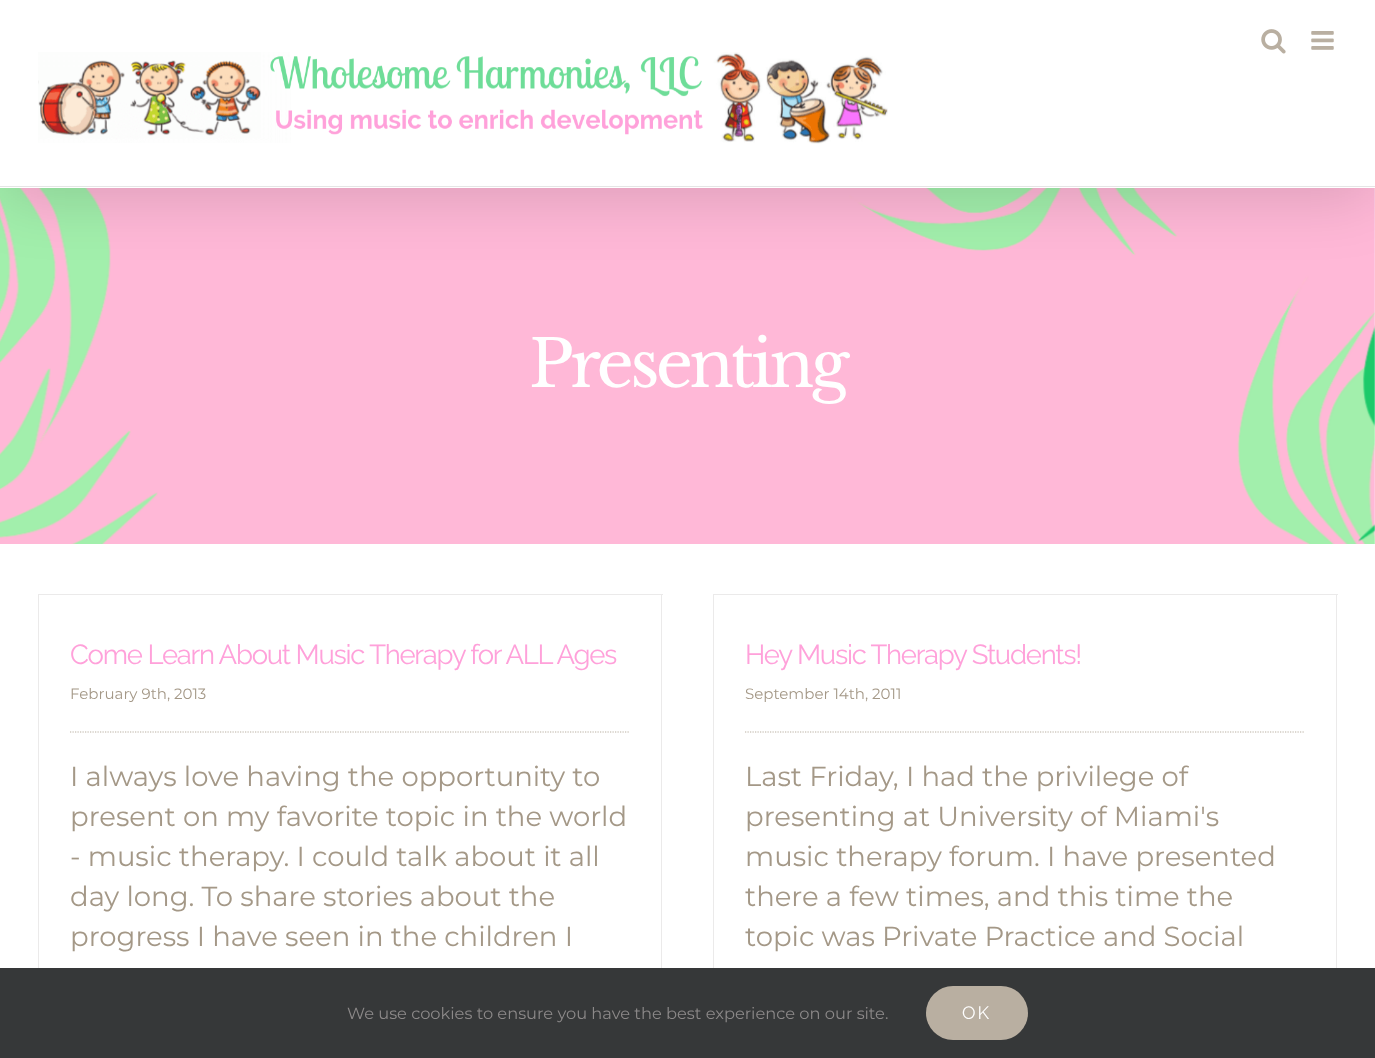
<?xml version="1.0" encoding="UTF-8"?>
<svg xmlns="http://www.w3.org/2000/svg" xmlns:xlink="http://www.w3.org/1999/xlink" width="1375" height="1058">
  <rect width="100%" height="100%" fill="#ffffff" />
  <image x="0" y="188" width="1375" height="356" xlink:href="image4.png" />
  <rect x="3" y="15" width="1370" height="183" fill="#000000" fill-opacity="0.14" filter="blur(31px)" />
  <rect width="1375" height="188" fill="#ffffff" />
  <rect y="186" width="1375" height="1" fill="#e5e5e5" />
  <image x="1261" y="29" width="25" height="25" xlink:href="image1.png" />
  <image x="1311" y="31" width="23" height="19" xlink:href="image2.png" />
  <image x="38" y="52" width="850" height="92" xlink:href="image3.png" />
  <rect x="38" y="594" width="625" height="1" fill="#ebeaea" />
  <rect x="661" y="594" width="1" height="374" fill="#ebeaea" />
  <rect x="38" y="594" width="1" height="374" fill="#ebeaea" />
  <path d="M 70 732 h 560" fill="none" stroke="#b9afa1" stroke-width="1.2" stroke-dasharray="1.25 1.25" />
  <rect x="713" y="594" width="625" height="1" fill="#ebeaea" />
  <rect x="1336" y="594" width="1" height="374" fill="#ebeaea" />
  <rect x="713" y="594" width="1" height="374" fill="#ebeaea" />
  <path d="M 745 732 h 560" fill="none" stroke="#b9afa1" stroke-width="1.2" stroke-dasharray="1.25 1.25" />
  <rect y="968" width="1375" height="90" fill="#363839" />
  <rect x="926" y="986" width="102" height="54" rx="27" fill="#b9afa1" />
  <text x="529" y="387" style="font-family: Libre Baskerville; font-size: 65px; letter-spacing: -3.75px; fill: #ffffff">Presenting</text>
  <text x="70" y="664" style="font-family: Raleway; font-size: 27.5px; letter-spacing: -1.25px; fill: #ffa1da">Come Learn About Music Therapy for ALL Ages</text>
  <text x="70" y="699" style="font-family: Montserrat; font-size: 15px; fill: #a49887">February 9th, 2013</text>
  <text x="70" y="786" style="font-family: Montserrat; font-size: 27.5px; fill: #a49887">I always love having the opportunity to</text>
  <text x="70" y="826" style="font-family: Montserrat; font-size: 27.5px; fill: #a49887">present on my favorite topic in the world</text>
  <text x="70" y="866" style="font-family: Montserrat; font-size: 27.5px; fill: #a49887">- music therapy. I could talk about it all</text>
  <text x="70" y="906" style="font-family: Montserrat; font-size: 27.5px; fill: #a49887">day long. To share stories about the</text>
  <text x="70" y="946" style="font-family: Montserrat; font-size: 27.5px; fill: #a49887">progress I have seen in the children I</text>
  <text x="745" y="664" style="font-family: Raleway; font-size: 27.5px; letter-spacing: -1.25px; fill: #ffa1da">Hey Music Therapy Students!</text>
  <text x="745" y="699" style="font-family: Montserrat; font-size: 15px; fill: #a49887">September 14th, 2011</text>
  <text x="745" y="786" style="font-family: Montserrat; font-size: 27.5px; fill: #a49887">Last Friday, I had the privilege of</text>
  <text x="745" y="826" style="font-family: Montserrat; font-size: 27.5px; fill: #a49887">presenting at University of Miami's</text>
  <text x="745" y="866" style="font-family: Montserrat; font-size: 27.5px; fill: #a49887">music therapy forum. I have presented</text>
  <text x="745" y="906" style="font-family: Montserrat; font-size: 27.5px; fill: #a49887">there a few times, and this time the</text>
  <text x="745" y="946" style="font-family: Montserrat; font-size: 27.5px; fill: #a49887">topic was Private Practice and Social</text>
  <text x="347" y="1019" style="font-family: Montserrat; font-size: 16.25px; fill: #8c8989">We use cookies to ensure you have the best experience on our site.</text>
  <text x="962" y="1019" style="font-family: Raleway; font-size: 18px; letter-spacing: 2px; fill: #ffffff">OK</text>
</svg>
